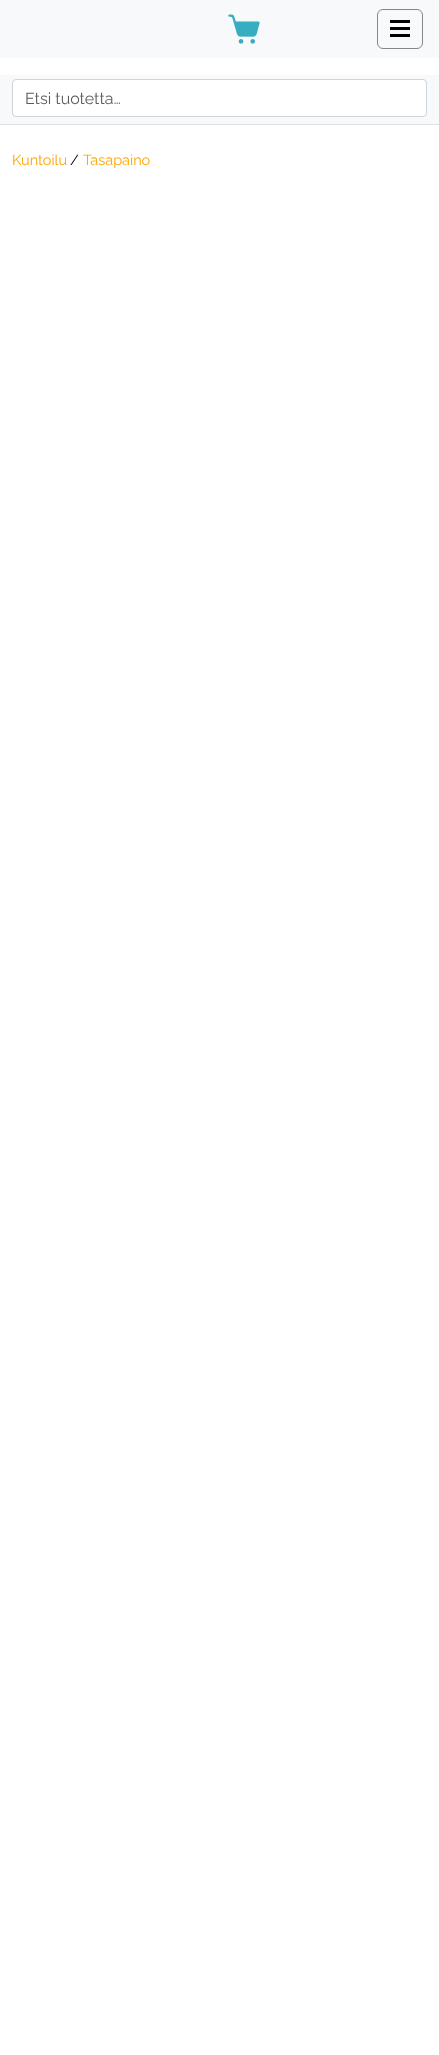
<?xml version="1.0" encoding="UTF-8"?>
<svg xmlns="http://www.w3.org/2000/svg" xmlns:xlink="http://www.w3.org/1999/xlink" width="439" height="2055">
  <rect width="100%" height="100%" fill="#ffffff" />
  <rect width="439" height="58" fill="#f8f9fa" />
  <image x="228" y="14" width="32" height="30" xlink:href="image1.png" />
  <rect x="377.5" y="9.5" width="45" height="39" rx="5.5" fill="none" stroke="#868686" />
  <rect x="390" y="20" width="20" height="3" fill="#000000" />
  <rect x="390" y="27" width="20" height="3" fill="#000000" />
  <rect x="390" y="34" width="20" height="3" fill="#000000" />
  <rect y="75" width="439" height="49" fill="#f8f9fa" />
  <rect y="124" width="439" height="1" fill="#dfe0e1" />
  <rect x="12.5" y="79.5" width="414" height="37" rx="3.5" fill="#ffffff" stroke="#ced4da" />
  <text x="25" y="104" style="font-family: Raleway; font-size: 16px; fill: #595c5f">Etsi tuotetta…</text>
  <text x="12" y="165" style="font-family: Raleway; font-size: 14.5px; fill: #ffa300">Kuntoilu</text>
  <text x="70" y="165" style="font-family: Raleway; font-size: 14.5px; fill: #000000">/</text>
  <text x="83" y="165" style="font-family: Raleway; font-size: 14.5px; fill: #ffa300">Tasapaino</text>
</svg>
